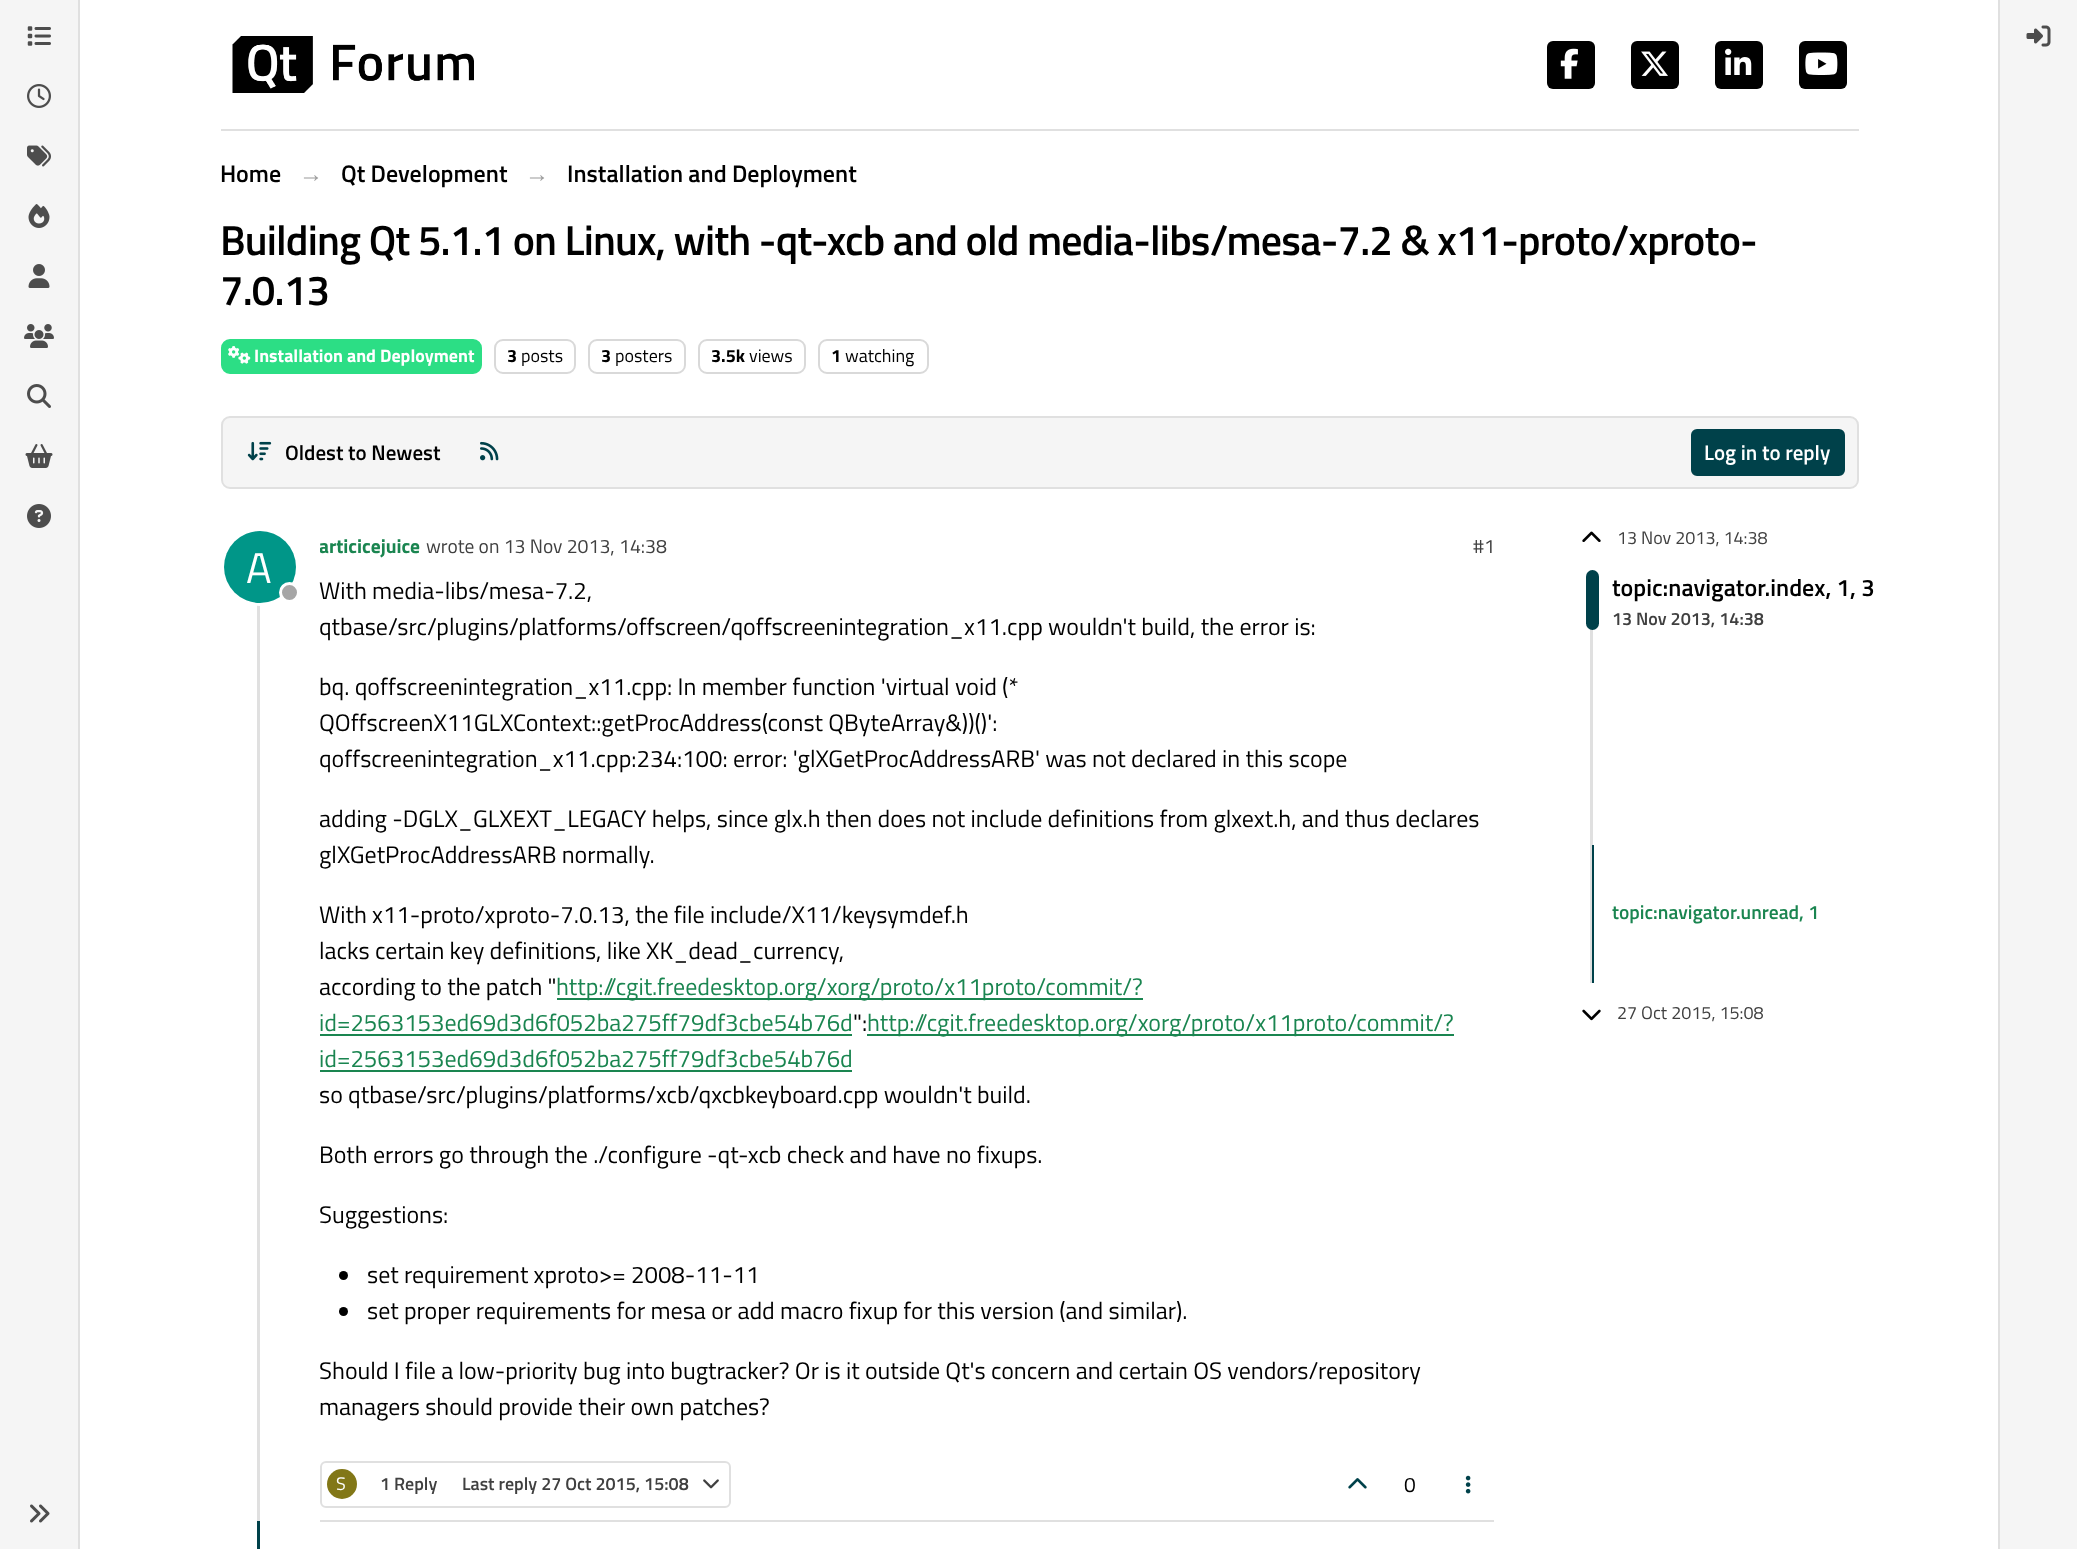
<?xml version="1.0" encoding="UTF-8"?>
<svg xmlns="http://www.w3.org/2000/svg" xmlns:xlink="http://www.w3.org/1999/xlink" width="2077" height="1549">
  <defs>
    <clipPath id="clip1"><rect x="320" y="531" width="100" height="30" /></clipPath>
  </defs>
  <rect width="100%" height="100%" fill="#ffffff" />
  <rect width="78" height="1549" fill="#f5f5f5" />
  <rect x="78" width="2" height="1549" fill="#e0e0e0" />
  <image x="27" y="26" width="24" height="20" xlink:href="image1.png" />
  <image x="27" y="84" width="24" height="24" xlink:href="image2.png" />
  <image x="27" y="145" width="24" height="22" xlink:href="image3.png" />
  <image x="28" y="204" width="22" height="24" xlink:href="image4.png" />
  <image x="28" y="264" width="22" height="24" xlink:href="image5.png" />
  <image x="24" y="324" width="30" height="24" xlink:href="image6.png" />
  <image x="27" y="384" width="24" height="24" xlink:href="image7.png" />
  <image x="25" y="444" width="28" height="24" xlink:href="image8.png" />
  <image x="27" y="504" width="24" height="24" xlink:href="image9.png" />
  <image x="30" y="1504" width="20" height="19" xlink:href="image10.png" />
  <rect x="221" y="129" width="1638" height="2" fill="#e0e0e0" />
  <image x="232" y="36" width="242" height="57" xlink:href="image11.png" />
  <rect x="1547" y="41" width="48" height="48" rx="6" fill="#000000" />
  <image x="1560" y="48" width="18" height="31" xlink:href="image12.png" />
  <rect x="1631" y="41" width="48" height="48" rx="6" fill="#000000" />
  <image x="1641" y="51" width="27" height="25" xlink:href="image13.png" />
  <rect x="1715" y="41" width="48" height="48" rx="6" fill="#000000" />
  <image x="1725" y="48" width="27" height="27" xlink:href="image14.png" />
  <rect x="1799" y="41" width="48" height="48" rx="6" fill="#000000" />
  <image x="1805" y="52" width="33" height="23" xlink:href="image15.png" />
  <rect x="222" y="340" width="259" height="33" rx="8" fill="#2cde85" stroke="#2cde85" stroke-width="2" />
  <image x="228" y="346" width="23" height="18" xlink:href="image16.png" />
  <rect x="495" y="340" width="80" height="33" rx="8" fill="none" stroke="#d9d9d9" stroke-width="2" />
  <rect x="589" y="340" width="96" height="33" rx="8" fill="none" stroke="#d9d9d9" stroke-width="2" />
  <rect x="699" y="340" width="106" height="33" rx="8" fill="none" stroke="#d9d9d9" stroke-width="2" />
  <rect x="819" y="340" width="109" height="33" rx="8" fill="none" stroke="#d9d9d9" stroke-width="2" />
  <rect x="222" y="417" width="1636" height="71" rx="8" fill="#f5f5f5" stroke="#e0e0e0" stroke-width="2" />
  <image x="247" y="441" width="25" height="20" xlink:href="image17.png" />
  <image x="480" y="441" width="19" height="20" xlink:href="image18.png" />
  <rect x="1692" y="430" width="152" height="45" rx="5" fill="#00414a" stroke="#00414a" stroke-width="2" />
  <rect x="257" y="531" width="3" height="990" fill="#e0e0e0" />
  <circle cx="260" cy="567" r="37.5" fill="none" stroke="#ffffff" stroke-width="3" />
  <circle cx="260" cy="567" r="36" fill="#009688" />
  <circle cx="289.5" cy="592.5" r="9" fill="#a6a6a6" stroke="#ffffff" stroke-width="3" />
  <rect x="557" y="998" width="586" height="2" fill="#1a8550" />
  <rect x="320" y="1034" width="532" height="2" fill="#1a8550" />
  <rect x="867" y="1034" width="587" height="2" fill="#1a8550" />
  <rect x="320" y="1070" width="532" height="2" fill="#1a8550" />
  <circle cx="343.5" cy="1275.5" r="4.5" fill="#000000" />
  <circle cx="343.5" cy="1311.5" r="4.5" fill="#000000" />
  <rect x="320" y="1520" width="1174" height="2" fill="#e0e0e0" />
  <rect x="321" y="1462" width="409" height="45" rx="5" fill="none" stroke="#e0e0e0" stroke-width="2" />
  <circle cx="342" cy="1484" r="15" fill="#827717" />
  <image x="703" y="1479" width="16" height="10" xlink:href="image19.png" />
  <image x="1348" y="1478" width="19" height="11" xlink:href="image20.png" />
  <image x="1465" y="1475" width="6" height="19" xlink:href="image21.png" />
  <rect x="257" y="1521" width="3" height="28" fill="#00414a" />
  <image x="1582" y="531" width="19" height="11" xlink:href="image22.png" />
  <rect x="1590" y="570" width="3" height="413" fill="#e0e0e0" />
  <rect x="1586" y="570" width="13" height="60" rx="6.5" fill="#00414a" />
  <rect x="1592" y="845" width="2" height="138" fill="#00414a" />
  <image x="1582" y="1009" width="19" height="12" xlink:href="image23.png" />
  <rect x="2000" width="77" height="1549" fill="#f5f5f5" />
  <rect x="1998" width="2" height="1549" fill="#e0e0e0" />
  <image x="2026" y="25" width="25" height="22" xlink:href="image24.png" />
  <text x="220" y="182" style="font-family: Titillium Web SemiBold; font-size: 24px; font-weight: 600; fill: #000000">Home</text>
  <text x="299" y="182" style="font-family: Liberation Sans; font-size: 24px; font-weight: bold; fill: #9e9e9e">→</text>
  <text x="341" y="182" style="font-family: Titillium Web SemiBold; font-size: 24px; font-weight: 600; fill: #000000">Qt Development</text>
  <text x="525" y="182" style="font-family: Liberation Sans; font-size: 24px; font-weight: bold; fill: #9e9e9e">→</text>
  <text x="567" y="182" style="font-family: Titillium Web SemiBold; font-size: 24px; font-weight: 600; fill: #000000">Installation and Deployment</text>
  <text x="220" y="255" style="font-family: Titillium Web SemiBold; font-size: 42px; font-weight: 600; letter-spacing: -0.85px; fill: #000000">Building Qt 5.1.1 on Linux, with -qt-xcb and old media-libs/mesa-7.2 &amp; x11-proto/xproto-</text>
  <text x="220" y="305" style="font-family: Titillium Web SemiBold; font-size: 42px; font-weight: 600; letter-spacing: -0.85px; fill: #000000">7.0.13</text>
  <text x="254" y="362" style="font-family: Titillium Web; font-size: 18px; font-weight: bold; fill: #ffffff">Installation and Deployment</text>
  <text x="507" y="362" style="font-family: Titillium Web; font-size: 18px; font-weight: bold; fill: #000000">3</text>
  <text x="521" y="362" style="font-family: Titillium Web; font-size: 18px; fill: #000000">posts</text>
  <text x="601" y="362" style="font-family: Titillium Web; font-size: 18px; font-weight: bold; fill: #000000">3</text>
  <text x="615" y="362" style="font-family: Titillium Web; font-size: 18px; fill: #000000">posters</text>
  <text x="711" y="362" style="font-family: Titillium Web; font-size: 18px; font-weight: bold; fill: #000000">3.5k</text>
  <text x="749" y="362" style="font-family: Titillium Web; font-size: 18px; fill: #000000">views</text>
  <text x="831" y="362" style="font-family: Titillium Web; font-size: 18px; font-weight: bold; fill: #000000">1</text>
  <text x="845" y="362" style="font-family: Titillium Web; font-size: 18px; fill: #000000">watching</text>
  <text x="285" y="460" style="font-family: Titillium Web SemiBold; font-size: 21px; font-weight: 600; fill: #000000">Oldest to Newest</text>
  <text x="1704" y="460" style="font-family: Titillium Web SemiBold; font-size: 21px; font-weight: 600; fill: #ffffff">Log in to reply</text>
  <text x="246" y="583" style="font-family: Titillium Web; font-size: 43px; fill: #ffffff">A</text>
  <g clip-path="url(#clip1)">
    <text x="319" y="553" style="font-family: Titillium Web; font-size: 19.5px; font-weight: bold; fill: #1a8550">articicejuice</text>
  </g>
  <text x="426" y="553" style="font-family: Titillium Web; font-size: 19.5px; fill: #404040">wrote on 13 Nov 2013, 14:38</text>
  <text x="1473" y="553" style="font-family: Titillium Web; font-size: 19.5px; fill: #404040">#1</text>
  <text x="319" y="599" style="font-family: Titillium Web; font-size: 24px; fill: #000000">With media-libs/mesa-7.2,</text>
  <text x="319" y="635" style="font-family: Titillium Web; font-size: 24px; fill: #000000">qtbase/src/plugins/platforms/offscreen/qoffscreenintegration_x11.cpp wouldn't build, the error is:</text>
  <text x="319" y="695" style="font-family: Titillium Web; font-size: 24px; fill: #000000">bq. qoffscreenintegration_x11.cpp: In member function 'virtual void (*</text>
  <text x="319" y="731" style="font-family: Titillium Web; font-size: 24px; fill: #000000">QOffscreenX11GLXContext::getProcAddress(const QByteArray&amp;))()':</text>
  <text x="319" y="767" style="font-family: Titillium Web; font-size: 24px; fill: #000000">qoffscreenintegration_x11.cpp:234:100: error: 'glXGetProcAddressARB' was not declared in this scope</text>
  <text x="319" y="827" style="font-family: Titillium Web; font-size: 24px; fill: #000000">adding -DGLX_GLXEXT_LEGACY helps, since glx.h then does not include definitions from glxext.h, and thus declares</text>
  <text x="319" y="863" style="font-family: Titillium Web; font-size: 24px; fill: #000000">glXGetProcAddressARB normally.</text>
  <text x="319" y="923" style="font-family: Titillium Web; font-size: 24px; fill: #000000">With x11-proto/xproto-7.0.13, the file include/X11/keysymdef.h</text>
  <text x="319" y="959" style="font-family: Titillium Web; font-size: 24px; fill: #000000">lacks certain key definitions, like XK_dead_currency,</text>
  <text x="319" y="995" style="font-family: Titillium Web; font-size: 24px; fill: #000000">according to the patch "</text>
  <text x="556" y="995" style="font-family: Titillium Web; font-size: 24px; fill: #1a8550">http://cgit.freedesktop.org/xorg/proto/x11proto/commit/?</text>
  <text x="319" y="1031" style="font-family: Titillium Web; font-size: 24px; fill: #1a8550">id=2563153ed69d3d6f052ba275ff79df3cbe54b76d</text>
  <text x="853" y="1031" style="font-family: Titillium Web; font-size: 24px; fill: #000000">":</text>
  <text x="867" y="1031" style="font-family: Titillium Web; font-size: 24px; fill: #1a8550">http://cgit.freedesktop.org/xorg/proto/x11proto/commit/?</text>
  <text x="319" y="1067" style="font-family: Titillium Web; font-size: 24px; fill: #1a8550">id=2563153ed69d3d6f052ba275ff79df3cbe54b76d</text>
  <text x="319" y="1103" style="font-family: Titillium Web; font-size: 24px; fill: #000000">so qtbase/src/plugins/platforms/xcb/qxcbkeyboard.cpp wouldn't build.</text>
  <text x="319" y="1163" style="font-family: Titillium Web; font-size: 24px; fill: #000000">Both errors go through the ./configure -qt-xcb check and have no fixups.</text>
  <text x="319" y="1223" style="font-family: Titillium Web; font-size: 24px; fill: #000000">Suggestions:</text>
  <text x="367" y="1283" style="font-family: Titillium Web; font-size: 24px; fill: #000000">set requirement xproto&gt;= 2008-11-11</text>
  <text x="367" y="1319" style="font-family: Titillium Web; font-size: 24px; fill: #000000">set proper requirements for mesa or add macro fixup for this version (and similar).</text>
  <text x="319" y="1379" style="font-family: Titillium Web; font-size: 24px; fill: #000000">Should I file a low-priority bug into bugtracker? Or is it outside Qt's concern and certain OS vendors/repository</text>
  <text x="319" y="1415" style="font-family: Titillium Web; font-size: 24px; fill: #000000">managers should provide their own patches?</text>
  <text x="336" y="1490" style="font-family: Titillium Web; font-size: 18px; fill: #ffffff">S</text>
  <text x="380" y="1490" style="font-family: Titillium Web SemiBold; font-size: 18px; font-weight: 600; fill: #404040">1 Reply</text>
  <text x="462" y="1490" style="font-family: Titillium Web SemiBold; font-size: 18px; font-weight: 600; fill: #404040">Last reply 27 Oct 2015, 15:08</text>
  <text x="1404" y="1492" style="font-family: Titillium Web; font-size: 21px; fill: #000000">0</text>
  <text x="1617" y="544" style="font-family: Titillium Web; font-size: 18px; fill: #404040">13 Nov 2013, 14:38</text>
  <text x="1612" y="596" style="font-family: Titillium Web SemiBold; font-size: 24px; font-weight: 600; fill: #000000">topic:navigator.index, 1, 3</text>
  <text x="1612" y="625" style="font-family: Titillium Web SemiBold; font-size: 18px; font-weight: 600; fill: #404040">13 Nov 2013, 14:38</text>
  <text x="1612" y="919" style="font-family: Titillium Web SemiBold; font-size: 19.5px; font-weight: 600; fill: #1a8550">topic:navigator.unread, 1</text>
  <text x="1617" y="1019" style="font-family: Titillium Web; font-size: 18px; fill: #404040">27 Oct 2015, 15:08</text>
</svg>
